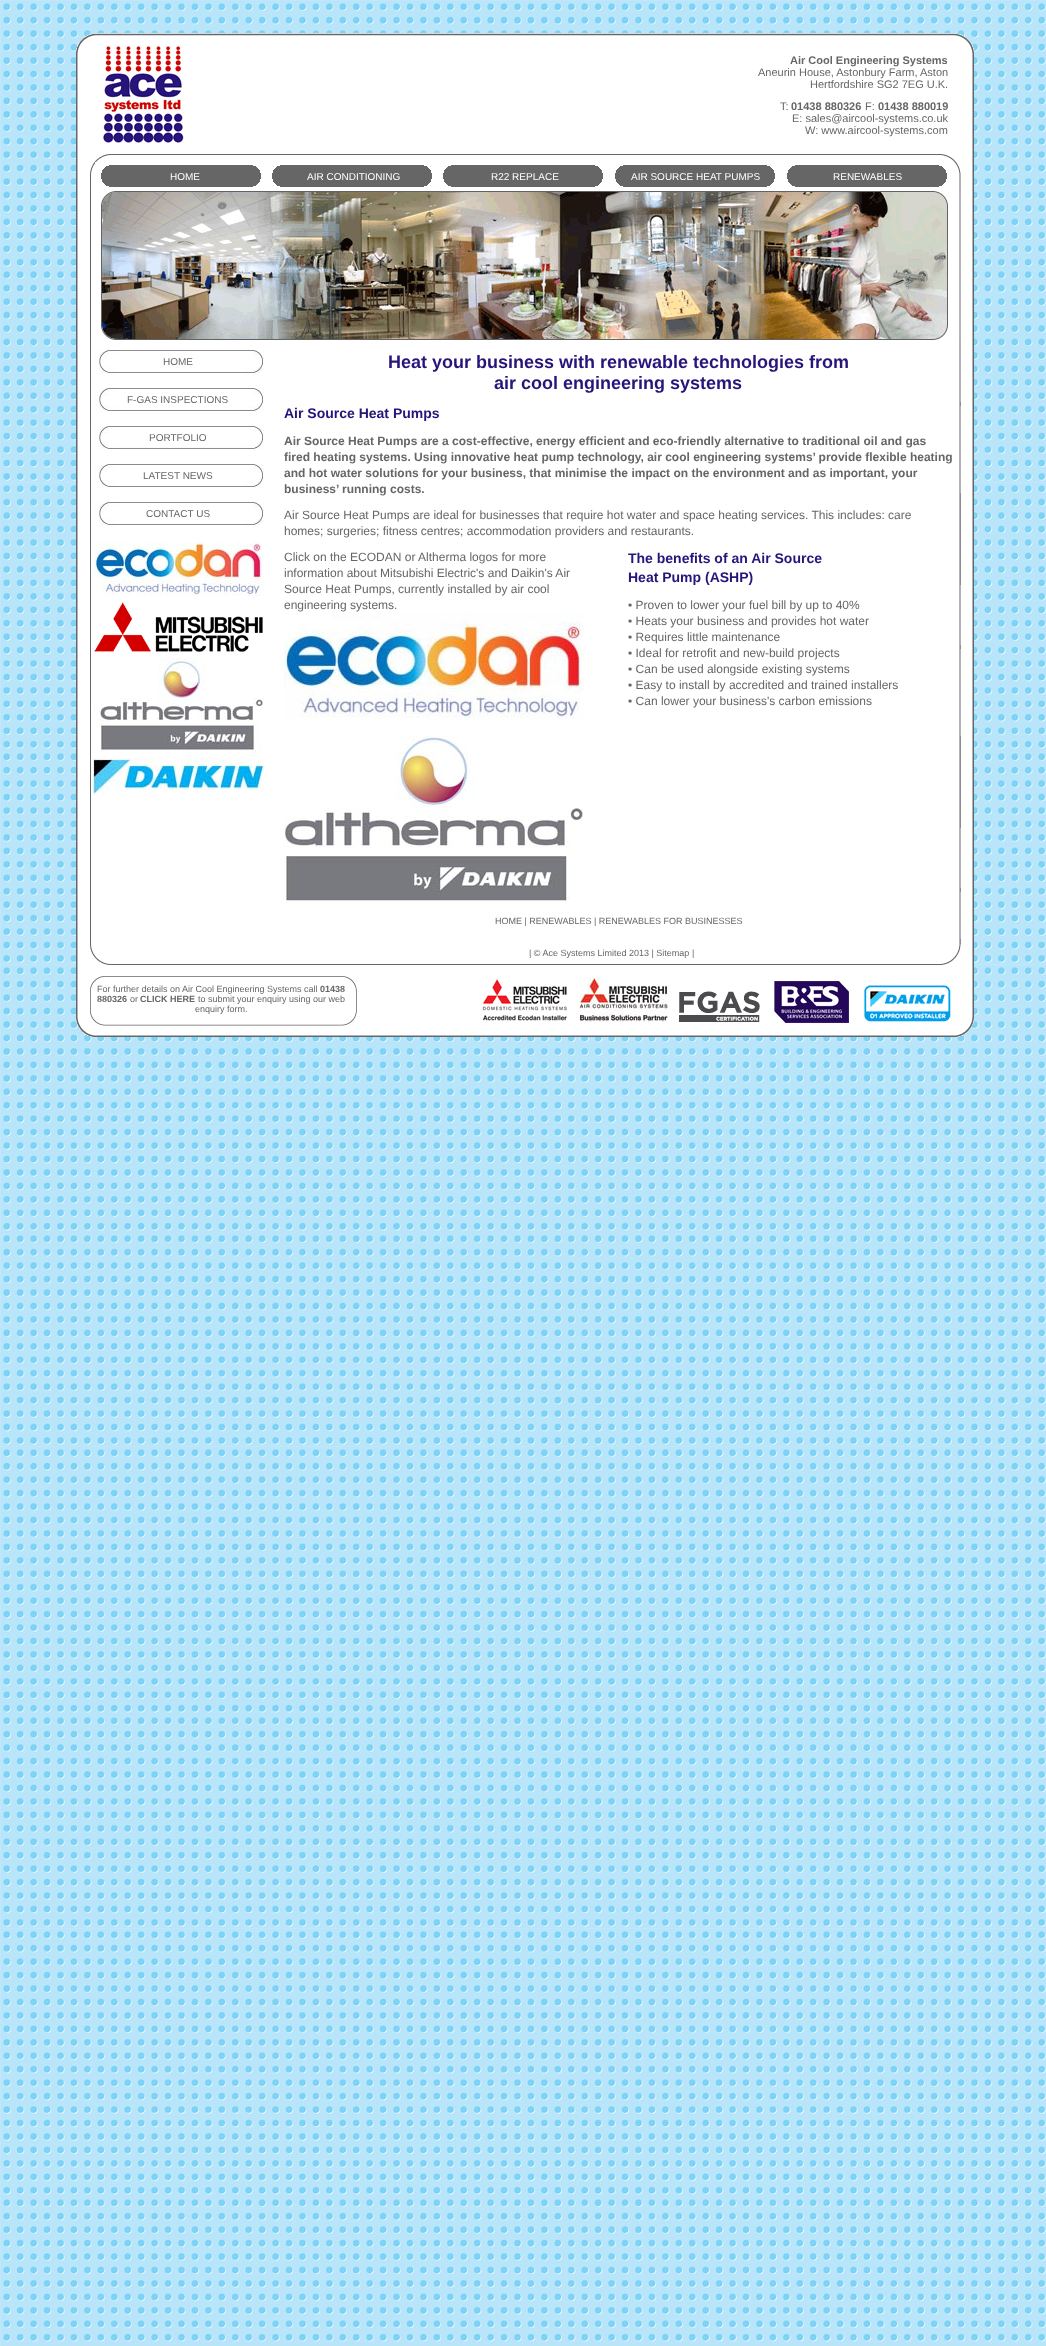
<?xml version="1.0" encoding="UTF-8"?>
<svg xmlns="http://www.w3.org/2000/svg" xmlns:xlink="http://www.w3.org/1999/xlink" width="1046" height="2346">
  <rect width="100%" height="100%" fill="#ffffff" />
  <image x="0" y="0" width="1046" height="2346" xlink:href="image1.png" />
  <image x="76" y="33" width="898" height="129" xlink:href="image2.png" />
  <image x="76" y="162" width="25" height="28" xlink:href="image3.png" />
  <image x="101" y="162" width="167" height="28" xlink:href="image4.png" />
  <image x="268" y="162" width="171" height="28" xlink:href="image5.png" />
  <image x="439" y="162" width="171" height="28" xlink:href="image5.png" />
  <image x="610" y="162" width="172" height="28" xlink:href="image6.png" />
  <image x="782" y="162" width="172" height="28" xlink:href="image6.png" />
  <image x="954" y="162" width="20" height="28" xlink:href="image7.png" />
  <image x="76" y="190" width="898" height="152" xlink:href="image8.png" />
  <image x="76" y="342" width="898" height="597" xlink:href="image9.png" />
  <image x="94" y="350" width="170" height="24" xlink:href="image10.png" />
  <image x="94" y="388" width="170" height="24" xlink:href="image10.png" />
  <image x="94" y="426" width="170" height="24" xlink:href="image10.png" />
  <image x="94" y="464" width="170" height="24" xlink:href="image10.png" />
  <image x="94" y="502" width="170" height="24" xlink:href="image10.png" />
  <image x="93" y="542" width="171" height="54" xlink:href="image11.png" />
  <image x="94" y="602" width="169" height="50" xlink:href="image12.png" />
  <image x="94" y="658" width="170" height="95" xlink:href="image13.png" />
  <image x="93" y="758" width="171" height="37" xlink:href="image14.png" />
  <image x="284" y="613" width="300" height="107" xlink:href="image15.png" />
  <image x="284" y="736" width="299" height="167" xlink:href="image16.png" />
  <image x="76" y="939" width="898" height="31" xlink:href="image17.png" />
  <image x="76" y="970" width="6" height="58" xlink:href="image18.png" />
  <image x="82" y="970" width="283" height="58" xlink:href="image19.png" />
  <image x="365" y="970" width="609" height="58" xlink:href="image20.png" />
  <image x="482" y="979" width="85" height="42" xlink:href="image21.png" />
  <image x="579" y="977" width="89" height="45" xlink:href="image22.png" />
  <image x="79" y="1028" width="892" height="9" xlink:href="image23.png" />
  <text x="790" y="64" style="font-family: Liberation Sans; font-size: 11px; font-weight: bold; fill: #666666">Air Cool Engineering Systems</text>
  <text x="758" y="76" style="font-family: Liberation Sans; font-size: 11px; fill: #666666">Aneurin House, Astonbury Farm, Aston</text>
  <text x="810" y="88" style="font-family: Liberation Sans; font-size: 11px; fill: #666666">Hertfordshire SG2 7EG U.K.</text>
  <text x="780" y="110" style="font-family: Liberation Sans; font-size: 11px; fill: #666666">T:</text>
  <text x="791" y="110" style="font-family: Liberation Sans; font-size: 11px; font-weight: bold; fill: #666666">01438 880326</text>
  <text x="865" y="110" style="font-family: Liberation Sans; font-size: 11px; fill: #666666">F:</text>
  <text x="878" y="110" style="font-family: Liberation Sans; font-size: 11px; font-weight: bold; fill: #666666">01438 880019</text>
  <text x="792" y="122" style="font-family: Liberation Sans; font-size: 11px; fill: #666666">E: sales@aircool-systems.co.uk</text>
  <text x="805" y="134" style="font-family: Liberation Sans; font-size: 11px; fill: #666666">W: www.aircool-systems.com</text>
  <text x="170" y="180" style="font-family: Liberation Sans; font-size: 10px; fill: #ffffff">HOME</text>
  <text x="307" y="180" style="font-family: Liberation Sans; font-size: 10px; fill: #ffffff">AIR CONDITIONING</text>
  <text x="491" y="180" style="font-family: Liberation Sans; font-size: 10px; fill: #ffffff">R22 REPLACE</text>
  <text x="631" y="180" style="font-family: Liberation Sans; font-size: 10px; fill: #ffffff">AIR SOURCE HEAT PUMPS</text>
  <text x="833" y="180" style="font-family: Liberation Sans; font-size: 10px; fill: #ffffff">RENEWABLES</text>
  <text x="163" y="365" style="font-family: Liberation Sans; font-size: 10px; fill: #666666">HOME</text>
  <text x="127" y="403" style="font-family: Liberation Sans; font-size: 10px; fill: #666666">F-GAS INSPECTIONS</text>
  <text x="149" y="441" style="font-family: Liberation Sans; font-size: 10px; fill: #666666">PORTFOLIO</text>
  <text x="143" y="479" style="font-family: Liberation Sans; font-size: 10px; fill: #666666">LATEST NEWS</text>
  <text x="146" y="517" style="font-family: Liberation Sans; font-size: 10px; fill: #666666">CONTACT US</text>
  <text x="388" y="368" style="font-family: Liberation Sans; font-size: 18px; font-weight: bold; fill: #28147a">Heat your business with renewable technologies from</text>
  <text x="494" y="389" style="font-family: Liberation Sans; font-size: 18px; font-weight: bold; fill: #28147a">air cool engineering systems</text>
  <text x="284" y="418" style="font-family: Liberation Sans; font-size: 14px; font-weight: bold; fill: #28147a">Air Source Heat Pumps</text>
  <text x="284" y="445" style="font-family: Liberation Sans; font-size: 12px; font-weight: bold; fill: #666666">Air Source Heat Pumps are a cost-effective, energy efficient and eco-friendly alternative to traditional oil and gas</text>
  <text x="284" y="461" style="font-family: Liberation Sans; font-size: 12px; font-weight: bold; fill: #666666">fired heating systems. Using innovative heat pump technology, air cool engineering systems’ provide flexible heating</text>
  <text x="284" y="477" style="font-family: Liberation Sans; font-size: 12px; font-weight: bold; fill: #666666">and hot water solutions for your business, that minimise the impact on the environment and as important, your</text>
  <text x="284" y="493" style="font-family: Liberation Sans; font-size: 12px; font-weight: bold; fill: #666666">business’ running costs.</text>
  <text x="284" y="519" style="font-family: Liberation Sans; font-size: 12px; fill: #666666">Air Source Heat Pumps are ideal for businesses that require hot water and space heating services. This includes: care</text>
  <text x="284" y="535" style="font-family: Liberation Sans; font-size: 12px; fill: #666666">homes; surgeries; fitness centres; accommodation providers and restaurants.</text>
  <text x="284" y="561" style="font-family: Liberation Sans; font-size: 12px; fill: #666666">Click on the ECODAN or Altherma logos for more</text>
  <text x="284" y="577" style="font-family: Liberation Sans; font-size: 12px; fill: #666666">information about Mitsubishi Electric's and Daikin's Air</text>
  <text x="284" y="593" style="font-family: Liberation Sans; font-size: 12px; fill: #666666">Source Heat Pumps, currently installed by air cool</text>
  <text x="284" y="609" style="font-family: Liberation Sans; font-size: 12px; fill: #666666">engineering systems.</text>
  <text x="628" y="563" style="font-family: Liberation Sans; font-size: 14px; font-weight: bold; fill: #28147a">The benefits of an Air Source</text>
  <text x="628" y="582" style="font-family: Liberation Sans; font-size: 14px; font-weight: bold; fill: #28147a">Heat Pump (ASHP)</text>
  <text x="628" y="609" style="font-family: Liberation Sans; font-size: 12px; fill: #666666">• Proven to lower your fuel bill by up to 40%</text>
  <text x="628" y="625" style="font-family: Liberation Sans; font-size: 12px; fill: #666666">• Heats your business and provides hot water</text>
  <text x="628" y="641" style="font-family: Liberation Sans; font-size: 12px; fill: #666666">• Requires little maintenance</text>
  <text x="628" y="657" style="font-family: Liberation Sans; font-size: 12px; fill: #666666">• Ideal for retrofit and new-build projects</text>
  <text x="628" y="673" style="font-family: Liberation Sans; font-size: 12px; fill: #666666">• Can be used alongside existing systems</text>
  <text x="628" y="689" style="font-family: Liberation Sans; font-size: 12px; fill: #666666">• Easy to install by accredited and trained installers</text>
  <text x="628" y="705" style="font-family: Liberation Sans; font-size: 12px; fill: #666666">• Can lower your business's carbon emissions</text>
  <text x="495" y="924" style="font-family: Liberation Sans; font-size: 9px; fill: #666666">HOME | RENEWABLES | RENEWABLES FOR BUSINESSES</text>
  <text x="529" y="956" style="font-family: Liberation Sans; font-size: 9px; fill: #666666">| © Ace Systems Limited 2013 | Sitemap |</text>
  <text x="97" y="992" style="font-family: Liberation Sans; font-size: 9px; fill: #666666">For further details on Air Cool Engineering Systems call</text>
  <text x="320" y="992" style="font-family: Liberation Sans; font-size: 9px; font-weight: bold; fill: #666666">01438</text>
  <text x="97" y="1002" style="font-family: Liberation Sans; font-size: 9px; font-weight: bold; fill: #666666">880326</text>
  <text x="130" y="1002" style="font-family: Liberation Sans; font-size: 9px; fill: #666666">or</text>
  <text x="140" y="1002" style="font-family: Liberation Sans; font-size: 9px; font-weight: bold; fill: #666666">CLICK HERE</text>
  <text x="198" y="1002" style="font-family: Liberation Sans; font-size: 9px; fill: #666666">to submit your enquiry using our web</text>
  <text x="195" y="1012" style="font-family: Liberation Sans; font-size: 9px; fill: #666666">enquiry form.</text>
</svg>
